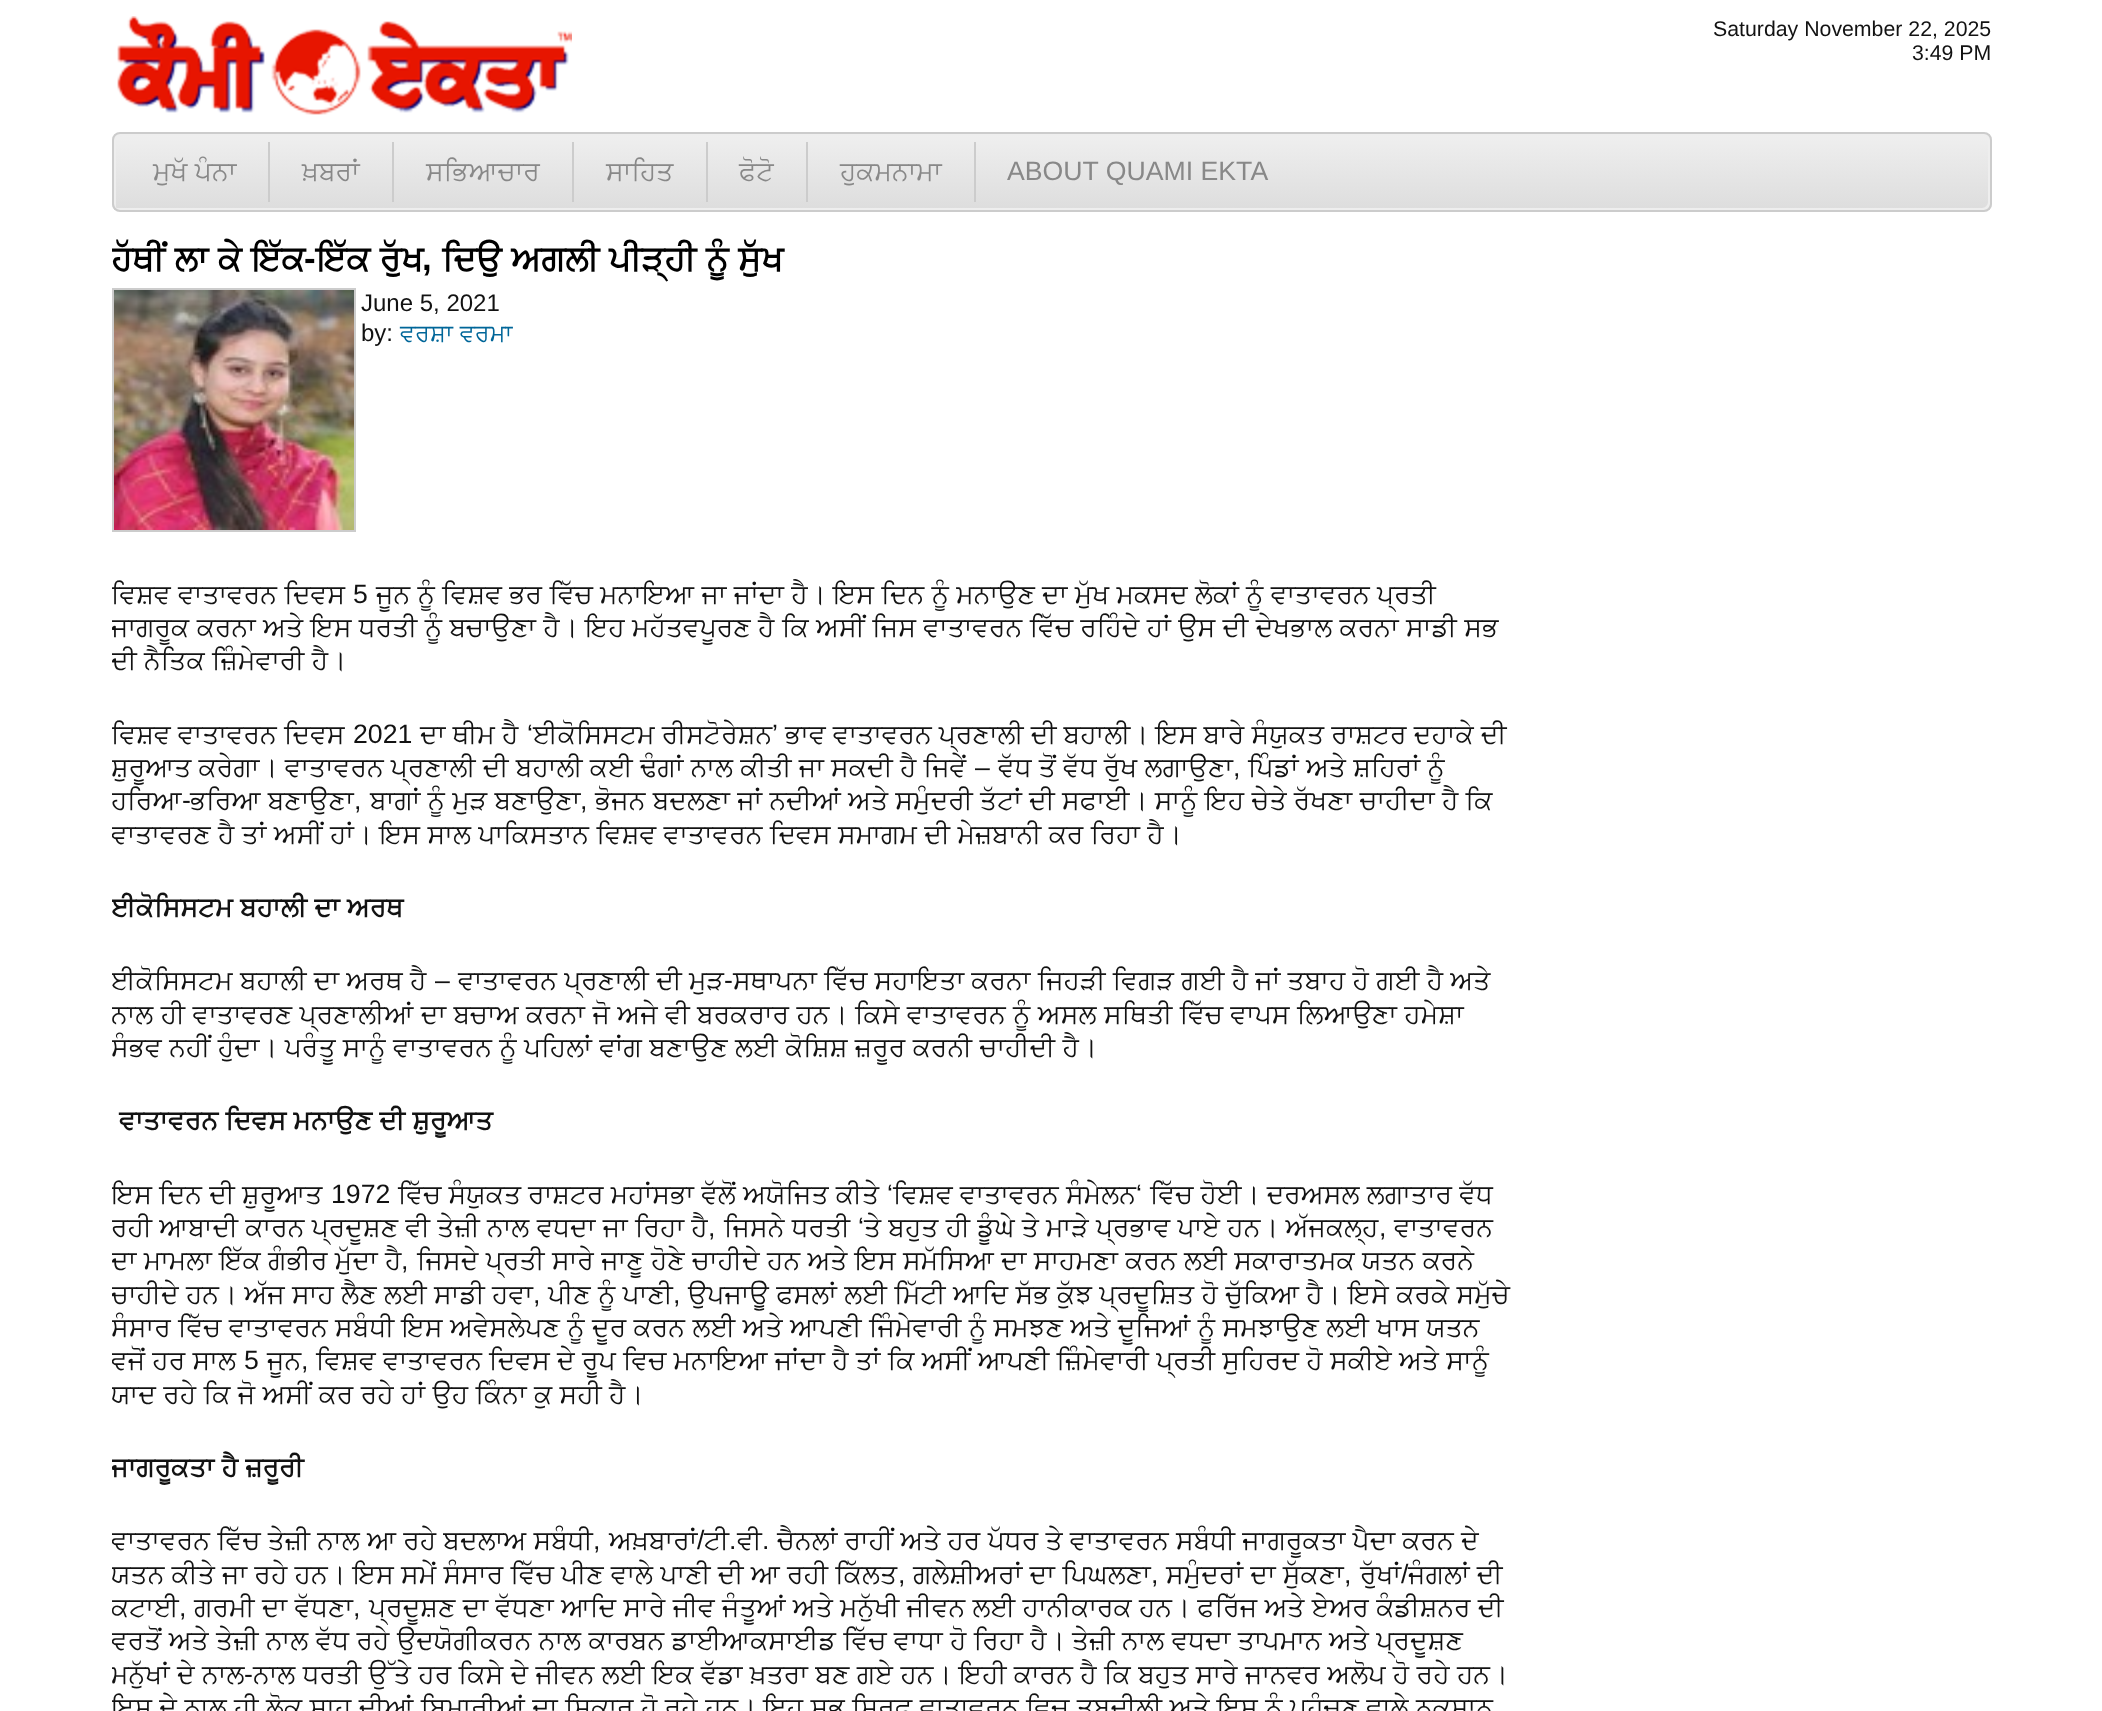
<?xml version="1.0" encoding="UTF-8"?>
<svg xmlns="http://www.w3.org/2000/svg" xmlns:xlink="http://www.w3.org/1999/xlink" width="2102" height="1711">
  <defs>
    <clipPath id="clip1"><rect x="112" y="132" width="1880" height="80" rx="8" /></clipPath>
    <linearGradient id="g1" gradientUnits="userSpaceOnUse" x1="1052" y1="134" x2="1052" y2="210"><stop offset="0" stop-color="#efefef" /><stop offset="1" stop-color="#dddddd" /></linearGradient>
    <clipPath id="clip2"><rect x="112" y="228" width="1400" height="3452" /></clipPath>
  </defs>
  <rect width="100%" height="100%" fill="#ffffff" />
  <image x="117" y="16" width="455" height="99" xlink:href="image1.png" />
  <g clip-path="url(#clip1)">
    <rect x="112" y="134" width="1880" height="76" fill="url(#g1)" />
  </g>
  <path d="M 115 207 c 1 2 3 3 5 3 h 1864 c 3 0 6 -3 6 -6 v -64 c 0 -2 -1 -4 -3 -5 c 1 1 1 2 1 3 v 64 c 0 3 -3 6 -6 6 h -1864 c -1 0 -2 0 -3 -1 z" fill="#eeeeee" />
  <path d="M 122 136 h 1864 l 3 1 c -1 -2 -3 -3 -5 -3 h -1864 c -3 0 -6 3 -6 6 v 64 c 0 2 1 4 3 5 c -1 -1 -1 -2 -1 -3 v -64 c 0 -3 3 -6 6 -6 z" fill="#eeeeee" />
  <rect x="113" y="133" width="1878" height="78" rx="7" fill="none" stroke="#cccccc" stroke-width="2" />
  <rect x="268" y="142" width="2" height="60" fill="#cccccc" />
  <rect x="392" y="142" width="2" height="60" fill="#cccccc" />
  <rect x="572" y="142" width="2" height="60" fill="#cccccc" />
  <rect x="706" y="142" width="2" height="60" fill="#cccccc" />
  <rect x="806" y="142" width="2" height="60" fill="#cccccc" />
  <rect x="974" y="142" width="2" height="60" fill="#cccccc" />
  <rect x="113" y="289" width="242" height="242" fill="none" stroke="#cccccc" stroke-width="2" />
  <image x="114" y="290" width="240" height="240" xlink:href="image2.png" />
  <text x="1713" y="36" style="font-family: Liberation Sans; font-size: 21.3px; fill: #121212">Saturday November 22, 2025</text>
  <text x="1912" y="60" style="font-family: Liberation Sans; font-size: 21.3px; fill: #121212">3:49 PM</text>
  <text x="153" y="180" word-spacing="0.75" style="font-family: FreeSans; font-size: 26.67px; fill: #888888">ਮੁਖੱ ਪੰਨਾ</text>
  <text x="302" y="180" style="font-family: FreeSans; font-size: 26.67px; fill: #888888">ਖ਼ਬਰਾਂ</text>
  <text x="426" y="180" style="font-family: FreeSans; font-size: 26.67px; fill: #888888">ਸਭਿਆਚਾਰ</text>
  <text x="606" y="180" style="font-family: FreeSans; font-size: 26.67px; fill: #888888">ਸਾਹਿਤ</text>
  <text x="739" y="180" style="font-family: FreeSans; font-size: 26.67px; fill: #888888">ਫੋਟੋ</text>
  <text x="840" y="180" style="font-family: FreeSans; font-size: 26.67px; fill: #888888">ਹੁਕਮਨਾਮਾ</text>
  <text x="1007" y="180" style="font-family: Liberation Sans; font-size: 26.67px; fill: #888888">ABOUT QUAMI EKTA</text>
  <g clip-path="url(#clip2)">
    <text x="111" y="270" word-spacing="1" style="font-family: FreeSans; font-size: 34.75px; font-weight: bold; fill: #000000">ਹੱਥੀਂ ਲਾ ਕੇ ਇੱਕ</text>
  </g>
  <text x="442" y="270" word-spacing="1" style="font-family: FreeSans; font-size: 34.75px; font-weight: bold; fill: #000000">ਦਿਉ ਅਗਲੀ ਪੀੜ੍ਹੀ ਨੂੰ ਸੁੱਖ</text>
  <text x="304" y="270" style="font-family: Liberation Sans; font-size: 34.75px; font-weight: bold; fill: #000000">-</text>
  <text x="316" y="270" word-spacing="1" style="font-family: FreeSans; font-size: 34.75px; font-weight: bold; fill: #000000">ਇੱਕ ਰੁੱਖ</text>
  <text x="422" y="270" style="font-family: Liberation Sans; font-size: 34.75px; font-weight: bold; fill: #000000">,</text>
  <text x="361" y="311" style="font-family: Liberation Sans; font-size: 24px; fill: #121212">June 5, 2021</text>
  <text x="361" y="341" style="font-family: Liberation Sans; font-size: 24px; fill: #121212">by:</text>
  <text x="400" y="341" word-spacing="1" style="font-family: FreeSans; font-size: 24px; fill: #006699">ਵਰਸ਼ਾ ਵਰਮਾ</text>
  <g clip-path="url(#clip2)">
    <text x="111" y="603" word-spacing="0.7" style="font-family: FreeSans; font-size: 26.67px; fill: #121212">ਵਿਸ਼ਵ ਵਾਤਾਵਰਨ ਦਿਵਸ</text>
  </g>
  <text x="353" y="603" style="font-family: Liberation Sans; font-size: 26.67px; fill: #121212">5</text>
  <text x="376" y="603" word-spacing="0.7" style="font-family: FreeSans; font-size: 26.67px; fill: #121212">ਜੂਨ ਨੂੰ ਵਿਸ਼ਵ ਭਰ ਵਿੱਚ ਮਨਾਇਆ ਜਾ ਜਾਂਦਾ ਹੈ। ਇਸ ਦਿਨ ਨੂੰ ਮਨਾਉਣ ਦਾ ਮੁੱਖ ਮਕਸਦ ਲੋਕਾਂ ਨੂੰ ਵਾਤਾਵਰਨ ਪ੍ਰਤੀ</text>
  <g clip-path="url(#clip2)">
    <text x="111" y="636" word-spacing="0.75" style="font-family: FreeSans; font-size: 26.67px; fill: #121212">ਜਾਗਰੂਕ ਕਰਨਾ ਅਤੇ ਇਸ ਧਰਤੀ ਨੂੰ ਬਚਾਉਣਾ ਹੈ। ਇਹ ਮਹੱਤਵਪੂਰਣ ਹੈ ਕਿ ਅਸੀਂ ਜਿਸ ਵਾਤਾਵਰਨ ਵਿੱਚ ਰਹਿੰਦੇ ਹਾਂ ਉਸ ਦੀ ਦੇਖਭਾਲ ਕਰਨਾ ਸਾਡੀ ਸਭ</text>
    <text x="111" y="669" word-spacing="0.75" style="font-family: FreeSans; font-size: 26.67px; fill: #121212">ਦੀ ਨੈਤਿਕ ਜ਼ਿੰਮੇਵਾਰੀ ਹੈ।</text>
    <text x="111" y="743" word-spacing="0.5" style="font-family: FreeSans; font-size: 26.67px; fill: #121212">ਵਿਸ਼ਵ ਵਾਤਾਵਰਨ ਦਿਵਸ</text>
  </g>
  <text x="353" y="743" style="font-family: Liberation Sans; font-size: 26.67px; fill: #121212">2021</text>
  <text x="420" y="743" word-spacing="0.5" style="font-family: FreeSans; font-size: 26.67px; fill: #121212">ਦਾ ਥੀਮ ਹੈ</text>
  <text x="527" y="743" style="font-family: Liberation Sans; font-size: 26.67px; fill: #121212">‘</text>
  <text x="533" y="743" word-spacing="0.5" style="font-family: FreeSans; font-size: 26.67px; fill: #121212">ਈਕੋਸਿਸਟਮ ਰੀਸਟੋਰੇਸ਼ਨ</text>
  <text x="772" y="743" style="font-family: Liberation Sans; font-size: 26.67px; fill: #121212">’</text>
  <text x="785" y="743" word-spacing="0.5" style="font-family: FreeSans; font-size: 26.67px; fill: #121212">ਭਾਵ ਵਾਤਾਵਰਨ ਪ੍ਰਣਾਲੀ ਦੀ ਬਹਾਲੀ। ਇਸ ਬਾਰੇ ਸੰਯੁਕਤ ਰਾਸ਼ਟਰ ਦਹਾਕੇ ਦੀ</text>
  <g clip-path="url(#clip2)">
    <text x="111" y="776" word-spacing="0.6" style="font-family: FreeSans; font-size: 26.67px; fill: #121212">ਸ਼ੁਰੂਆਤ ਕਰੇਗਾ। ਵਾਤਾਵਰਨ ਪ੍ਰਣਾਲੀ ਦੀ ਬਹਾਲੀ ਕਈ ਢੰਗਾਂ ਨਾਲ ਕੀਤੀ ਜਾ ਸਕਦੀ ਹੈ ਜਿਵੇਂ</text>
  </g>
  <text x="975" y="776" style="font-family: Liberation Sans; font-size: 26.67px; fill: #121212">–</text>
  <text x="998" y="776" word-spacing="0.6" style="font-family: FreeSans; font-size: 26.67px; fill: #121212">ਵੱਧ ਤੋਂ ਵੱਧ ਰੁੱਖ ਲਗਾਉਣਾ</text>
  <text x="1233" y="776" style="font-family: Liberation Sans; font-size: 26.67px; fill: #121212">,</text>
  <text x="1248" y="776" word-spacing="0.6" style="font-family: FreeSans; font-size: 26.67px; fill: #121212">ਪਿੰਡਾਂ ਅਤੇ ਸ਼ਹਿਰਾਂ ਨੂੰ</text>
  <g clip-path="url(#clip2)">
    <text x="111" y="809" style="font-family: FreeSans; font-size: 26.67px; fill: #121212">ਹਰਿਆ</text>
  </g>
  <text x="182" y="809" style="font-family: Liberation Sans; font-size: 26.67px; fill: #121212">-</text>
  <text x="190" y="809" word-spacing="0.6" style="font-family: FreeSans; font-size: 26.67px; fill: #121212">ਭਰਿਆ ਬਣਾਉਣਾ</text>
  <text x="370" y="809" word-spacing="0.6" style="font-family: FreeSans; font-size: 26.67px; fill: #121212">ਬਾਗਾਂ ਨੂੰ ਮੁੜ ਬਣਾਉਣਾ</text>
  <text x="354" y="809" style="font-family: Liberation Sans; font-size: 26.67px; fill: #121212">,</text>
  <text x="580" y="809" style="font-family: Liberation Sans; font-size: 26.67px; fill: #121212">,</text>
  <text x="595" y="809" word-spacing="0.6" style="font-family: FreeSans; font-size: 26.67px; fill: #121212">ਭੋਜਨ ਬਦਲਣਾ ਜਾਂ ਨਦੀਆਂ ਅਤੇ ਸਮੁੰਦਰੀ ਤੱਟਾਂ ਦੀ ਸਫਾਈ। ਸਾਨੂੰ ਇਹ ਚੇਤੇ ਰੱਖਣਾ ਚਾਹੀਦਾ ਹੈ ਕਿ</text>
  <g clip-path="url(#clip2)">
    <text x="111" y="843" word-spacing="0.75" style="font-family: FreeSans; font-size: 26.67px; fill: #121212">ਵਾਤਾਵਰਣ ਹੈ ਤਾਂ ਅਸੀਂ ਹਾਂ। ਇਸ ਸਾਲ ਪਾਕਿਸਤਾਨ ਵਿਸ਼ਵ ਵਾਤਾਵਰਨ ਦਿਵਸ ਸਮਾਗਮ ਦੀ ਮੇਜ਼ਬਾਨੀ ਕਰ ਰਿਹਾ ਹੈ।</text>
    <text x="111" y="916" word-spacing="0.75" style="font-family: FreeSans; font-size: 26.67px; font-weight: bold; fill: #121212">ਈਕੋਸਿਸਟਮ ਬਹਾਲੀ ਦਾ ਅਰਥ</text>
    <text x="111" y="989" word-spacing="0.6" style="font-family: FreeSans; font-size: 26.67px; fill: #121212">ਈਕੋਸਿਸਟਮ ਬਹਾਲੀ ਦਾ ਅਰਥ ਹੈ</text>
  </g>
  <text x="435" y="989" style="font-family: Liberation Sans; font-size: 26.67px; fill: #121212">–</text>
  <text x="458" y="989" word-spacing="0.6" style="font-family: FreeSans; font-size: 26.67px; fill: #121212">ਵਾਤਾਵਰਨ ਪ੍ਰਣਾਲੀ ਦੀ ਮੁੜ</text>
  <text x="724" y="989" style="font-family: Liberation Sans; font-size: 26.67px; fill: #121212">-</text>
  <text x="733" y="989" word-spacing="0.6" style="font-family: FreeSans; font-size: 26.67px; fill: #121212">ਸਥਾਪਨਾ ਵਿੱਚ ਸਹਾਇਤਾ ਕਰਨਾ ਜਿਹੜੀ ਵਿਗੜ ਗਈ ਹੈ ਜਾਂ ਤਬਾਹ ਹੋ ਗਈ ਹੈ ਅਤੇ</text>
  <g clip-path="url(#clip2)">
    <text x="111" y="1023" word-spacing="0.75" style="font-family: FreeSans; font-size: 26.67px; fill: #121212">ਨਾਲ ਹੀ ਵਾਤਾਵਰਣ ਪ੍ਰਣਾਲੀਆਂ ਦਾ ਬਚਾਅ ਕਰਨਾ ਜੋ ਅਜੇ ਵੀ ਬਰਕਰਾਰ ਹਨ। ਕਿਸੇ ਵਾਤਾਵਰਨ ਨੂੰ ਅਸਲ ਸਥਿਤੀ ਵਿੱਚ ਵਾਪਸ ਲਿਆਉਣਾ ਹਮੇਸ਼ਾ</text>
    <text x="111" y="1056" word-spacing="0.75" style="font-family: FreeSans; font-size: 26.67px; fill: #121212">ਸੰਭਵ ਨਹੀਂ ਹੁੰਦਾ। ਪਰੰਤੂ ਸਾਨੂੰ ਵਾਤਾਵਰਨ ਨੂੰ ਪਹਿਲਾਂ ਵਾਂਗ ਬਣਾਉਣ ਲਈ ਕੋਸ਼ਿਸ਼ ਜ਼ਰੂਰ ਕਰਨੀ ਚਾਹੀਦੀ ਹੈ।</text>
  </g>
  <text x="119" y="1129" word-spacing="0.75" style="font-family: FreeSans; font-size: 26.67px; font-weight: bold; fill: #121212">ਵਾਤਾਵਰਨ ਦਿਵਸ ਮਨਾਉਣ ਦੀ ਸ਼ੁਰੂਆਤ</text>
  <g clip-path="url(#clip2)">
    <text x="111" y="1203" word-spacing="0.5" style="font-family: FreeSans; font-size: 26.67px; fill: #121212">ਇਸ ਦਿਨ ਦੀ ਸ਼ੁਰੂਆਤ</text>
  </g>
  <text x="331" y="1203" style="font-family: Liberation Sans; font-size: 26.67px; fill: #121212">1972</text>
  <text x="398" y="1203" word-spacing="0.5" style="font-family: FreeSans; font-size: 26.67px; fill: #121212">ਵਿੱਚ ਸੰਯੁਕਤ ਰਾਸ਼ਟਰ ਮਹਾਂਸਭਾ ਵੱਲੋਂ ਅਯੋਜਿਤ ਕੀਤੇ</text>
  <text x="887" y="1203" style="font-family: Liberation Sans; font-size: 26.67px; fill: #121212">‘</text>
  <text x="893" y="1203" word-spacing="0.5" style="font-family: FreeSans; font-size: 26.67px; fill: #121212">ਵਿਸ਼ਵ ਵਾਤਾਵਰਨ ਸੰਮੇਲਨ</text>
  <text x="1136" y="1203" style="font-family: Liberation Sans; font-size: 26.67px; fill: #121212">‘</text>
  <text x="1150" y="1203" word-spacing="0.5" style="font-family: FreeSans; font-size: 26.67px; fill: #121212">ਵਿੱਚ ਹੋਈ। ਦਰਅਸਲ ਲਗਾਤਾਰ ਵੱਧ</text>
  <g clip-path="url(#clip2)">
    <text x="111" y="1236" word-spacing="0.6" style="font-family: FreeSans; font-size: 26.67px; fill: #121212">ਰਹੀ ਆਬਾਦੀ ਕਾਰਨ ਪ੍ਰਦੂਸ਼ਣ ਵੀ ਤੇਜ਼ੀ ਨਾਲ ਵਧਦਾ ਜਾ ਰਿਹਾ ਹੈ</text>
  </g>
  <text x="724" y="1236" word-spacing="0.6" style="font-family: FreeSans; font-size: 26.67px; fill: #121212">ਜਿਸਨੇ ਧਰਤੀ</text>
  <text x="708" y="1236" style="font-family: Liberation Sans; font-size: 26.67px; fill: #121212">,</text>
  <text x="858" y="1236" style="font-family: Liberation Sans; font-size: 26.67px; fill: #121212">‘</text>
  <text x="864" y="1236" word-spacing="0.6" style="font-family: FreeSans; font-size: 26.67px; fill: #121212">ਤੇ ਬਹੁਤ ਹੀ ਡੂੰਘੇ ਤੇ ਮਾੜੇ ਪ੍ਰਭਾਵ ਪਾਏ ਹਨ। ਅੱਜਕਲ੍ਹ</text>
  <text x="1379" y="1236" style="font-family: Liberation Sans; font-size: 26.67px; fill: #121212">,</text>
  <text x="1394" y="1236" style="font-family: FreeSans; font-size: 26.67px; fill: #121212">ਵਾਤਾਵਰਨ</text>
  <g clip-path="url(#clip2)">
    <text x="111" y="1269" word-spacing="0.7" style="font-family: FreeSans; font-size: 26.67px; fill: #121212">ਦਾ ਮਾਮਲਾ ਇੱਕ ਗੰਭੀਰ ਮੁੱਦਾ ਹੈ</text>
  </g>
  <text x="401" y="1269" style="font-family: Liberation Sans; font-size: 26.67px; fill: #121212">,</text>
  <text x="417" y="1269" word-spacing="0.7" style="font-family: FreeSans; font-size: 26.67px; fill: #121212">ਜਿਸਦੇ ਪ੍ਰਤੀ ਸਾਰੇ ਜਾਣੂ ਹੋਣੇ ਚਾਹੀਦੇ ਹਨ ਅਤੇ ਇਸ ਸਮੱਸਿਆ ਦਾ ਸਾਹਮਣਾ ਕਰਨ ਲਈ ਸਕਾਰਾਤਮਕ ਯਤਨ ਕਰਨੇ</text>
  <g clip-path="url(#clip2)">
    <text x="111" y="1303" word-spacing="0.7" style="font-family: FreeSans; font-size: 26.67px; fill: #121212">ਚਾਹੀਦੇ ਹਨ। ਅੱਜ ਸਾਹ ਲੈਣ ਲਈ ਸਾਡੀ ਹਵਾ</text>
  </g>
  <text x="533" y="1303" style="font-family: Liberation Sans; font-size: 26.67px; fill: #121212">,</text>
  <text x="548" y="1303" word-spacing="0.7" style="font-family: FreeSans; font-size: 26.67px; fill: #121212">ਪੀਣ ਨੂੰ ਪਾਣੀ</text>
  <text x="673" y="1303" style="font-family: Liberation Sans; font-size: 26.67px; fill: #121212">,</text>
  <text x="688" y="1303" word-spacing="0.7" style="font-family: FreeSans; font-size: 26.67px; fill: #121212">ਉਪਜਾਊ ਫਸਲਾਂ ਲਈ ਮਿੱਟੀ ਆਦਿ ਸੱਭ ਕੁੱਝ ਪ੍ਰਦੂਸ਼ਿਤ ਹੋ ਚੁੱਕਿਆ ਹੈ। ਇਸੇ ਕਰਕੇ ਸਮੁੱਚੇ</text>
  <g clip-path="url(#clip2)">
    <text x="111" y="1336" word-spacing="0.75" style="font-family: FreeSans; font-size: 26.67px; fill: #121212">ਸੰਸਾਰ ਵਿੱਚ ਵਾਤਾਵਰਨ ਸਬੰਧੀ ਇਸ ਅਵੇਸਲੇਪਣ ਨੂੰ ਦੂਰ ਕਰਨ ਲਈ ਅਤੇ ਆਪਣੀ ਜਿੰਮੇਵਾਰੀ ਨੂੰ ਸਮਝਣ ਅਤੇ ਦੂਜਿਆਂ ਨੂੰ ਸਮਝਾਉਣ ਲਈ ਖਾਸ ਯਤਨ</text>
    <text x="111" y="1369" word-spacing="0.6" style="font-family: FreeSans; font-size: 26.67px; fill: #121212">ਵਜੋਂ ਹਰ ਸਾਲ</text>
  </g>
  <text x="244" y="1369" style="font-family: Liberation Sans; font-size: 26.67px; fill: #121212">5</text>
  <text x="267" y="1369" style="font-family: FreeSans; font-size: 26.67px; fill: #121212">ਜੂਨ</text>
  <text x="301" y="1369" style="font-family: Liberation Sans; font-size: 26.67px; fill: #121212">,</text>
  <text x="316" y="1369" word-spacing="0.6" style="font-family: FreeSans; font-size: 26.67px; fill: #121212">ਵਿਸ਼ਵ ਵਾਤਾਵਰਨ ਦਿਵਸ ਦੇ ਰੂਪ ਵਿਚ ਮਨਾਇਆ ਜਾਂਦਾ ਹੈ ਤਾਂ ਕਿ ਅਸੀਂ ਆਪਣੀ ਜ਼ਿੰਮੇਵਾਰੀ ਪ੍ਰਤੀ ਸੁਹਿਰਦ ਹੋ ਸਕੀਏ ਅਤੇ ਸਾਨੂੰ</text>
  <g clip-path="url(#clip2)">
    <text x="111" y="1403" word-spacing="0.75" style="font-family: FreeSans; font-size: 26.67px; fill: #121212">ਯਾਦ ਰਹੇ ਕਿ ਜੋ ਅਸੀਂ ਕਰ ਰਹੇ ਹਾਂ ਉਹ ਕਿੰਨਾ ਕੁ ਸਹੀ ਹੈ।</text>
    <text x="111" y="1476" word-spacing="0.75" style="font-family: FreeSans; font-size: 26.67px; font-weight: bold; fill: #121212">ਜਾਗਰੂਕਤਾ ਹੈ ਜ਼ਰੂਰੀ</text>
    <text x="111" y="1549" word-spacing="0.6" style="font-family: FreeSans; font-size: 26.67px; fill: #121212">ਵਾਤਾਵਰਨ ਵਿੱਚ ਤੇਜ਼ੀ ਨਾਲ ਆ ਰਹੇ ਬਦਲਾਅ ਸਬੰਧੀ</text>
  </g>
  <text x="609" y="1549" style="font-family: FreeSans; font-size: 26.67px; fill: #121212">ਅਖ਼ਬਾਰਾਂ</text>
  <text x="593" y="1549" style="font-family: Liberation Sans; font-size: 26.67px; fill: #121212">,</text>
  <text x="697" y="1549" style="font-family: Liberation Sans; font-size: 26.67px; fill: #121212">/</text>
  <text x="704" y="1549" style="font-family: FreeSans; font-size: 26.67px; fill: #121212">ਟੀ</text>
  <text x="729" y="1549" style="font-family: Liberation Sans; font-size: 26.67px; fill: #121212">.</text>
  <text x="737" y="1549" style="font-family: FreeSans; font-size: 26.67px; fill: #121212">ਵੀ</text>
  <text x="762" y="1549" style="font-family: Liberation Sans; font-size: 26.67px; fill: #121212">.</text>
  <text x="777" y="1549" word-spacing="0.6" style="font-family: FreeSans; font-size: 26.67px; fill: #121212">ਚੈਨਲਾਂ ਰਾਹੀਂ ਅਤੇ ਹਰ ਪੱਧਰ ਤੇ ਵਾਤਾਵਰਨ ਸਬੰਧੀ ਜਾਗਰੂਕਤਾ ਪੈਦਾ ਕਰਨ ਦੇ</text>
  <g clip-path="url(#clip2)">
    <text x="111" y="1583" word-spacing="0.6" style="font-family: FreeSans; font-size: 26.67px; fill: #121212">ਯਤਨ ਕੀਤੇ ਜਾ ਰਹੇ ਹਨ। ਇਸ ਸਮੇਂ ਸੰਸਾਰ ਵਿੱਚ ਪੀਣ ਵਾਲੇ ਪਾਣੀ ਦੀ ਆ ਰਹੀ ਕਿੱਲਤ</text>
  </g>
  <text x="913" y="1583" word-spacing="0.6" style="font-family: FreeSans; font-size: 26.67px; fill: #121212">ਗਲੇਸ਼ੀਅਰਾਂ ਦਾ ਪਿਘਲਣਾ</text>
  <text x="1166" y="1583" word-spacing="0.6" style="font-family: FreeSans; font-size: 26.67px; fill: #121212">ਸਮੁੰਦਰਾਂ ਦਾ ਸੁੱਕਣਾ</text>
  <text x="898" y="1583" style="font-family: Liberation Sans; font-size: 26.67px; fill: #121212">,</text>
  <text x="1151" y="1583" style="font-family: Liberation Sans; font-size: 26.67px; fill: #121212">,</text>
  <text x="1344" y="1583" style="font-family: Liberation Sans; font-size: 26.67px; fill: #121212">,</text>
  <text x="1360" y="1583" style="font-family: FreeSans; font-size: 26.67px; fill: #121212">ਰੁੱਖਾਂ</text>
  <text x="1401" y="1583" style="font-family: Liberation Sans; font-size: 26.67px; fill: #121212">/</text>
  <text x="1408" y="1583" word-spacing="0.6" style="font-family: FreeSans; font-size: 26.67px; fill: #121212">ਜੰਗਲਾਂ ਦੀ</text>
  <g clip-path="url(#clip2)">
    <text x="111" y="1616" style="font-family: FreeSans; font-size: 26.67px; fill: #121212">ਕਟਾਈ</text>
  </g>
  <text x="179" y="1616" style="font-family: Liberation Sans; font-size: 26.67px; fill: #121212">,</text>
  <text x="194" y="1616" word-spacing="0.6" style="font-family: FreeSans; font-size: 26.67px; fill: #121212">ਗਰਮੀ ਦਾ ਵੱਧਣਾ</text>
  <text x="353" y="1616" style="font-family: Liberation Sans; font-size: 26.67px; fill: #121212">,</text>
  <text x="369" y="1616" word-spacing="0.6" style="font-family: FreeSans; font-size: 26.67px; fill: #121212">ਪ੍ਰਦੂਸ਼ਣ ਦਾ ਵੱਧਣਾ ਆਦਿ ਸਾਰੇ ਜੀਵ ਜੰਤੂਆਂ ਅਤੇ ਮਨੁੱਖੀ ਜੀਵਨ ਲਈ ਹਾਨੀਕਾਰਕ ਹਨ। ਫਰਿੱਜ ਅਤੇ ਏਅਰ ਕੰਡੀਸ਼ਨਰ ਦੀ</text>
  <g clip-path="url(#clip2)">
    <text x="111" y="1649" word-spacing="0.75" style="font-family: FreeSans; font-size: 26.67px; fill: #121212">ਵਰਤੋਂ ਅਤੇ ਤੇਜ਼ੀ ਨਾਲ ਵੱਧ ਰਹੇ ਉਦਯੋਗੀਕਰਨ ਨਾਲ ਕਾਰਬਨ ਡਾਈਆਕਸਾਈਡ ਵਿੱਚ ਵਾਧਾ ਹੋ ਰਿਹਾ ਹੈ। ਤੇਜ਼ੀ ਨਾਲ ਵਧਦਾ ਤਾਪਮਾਨ ਅਤੇ ਪ੍ਰਦੂਸ਼ਣ</text>
    <text x="111" y="1683" word-spacing="0.75" style="font-family: FreeSans; font-size: 26.67px; fill: #121212">ਮਨੁੱਖਾਂ ਦੇ ਨਾਲ</text>
  </g>
  <text x="244" y="1683" style="font-family: Liberation Sans; font-size: 26.67px; fill: #121212">-</text>
  <text x="253" y="1683" word-spacing="0.75" style="font-family: FreeSans; font-size: 26.67px; fill: #121212">ਨਾਲ ਧਰਤੀ ਉੱਤੇ ਹਰ ਕਿਸੇ ਦੇ ਜੀਵਨ ਲਈ ਇਕ ਵੱਡਾ ਖ਼ਤਰਾ ਬਣ ਗਏ ਹਨ। ਇਹੀ ਕਾਰਨ ਹੈ ਕਿ ਬਹੁਤ ਸਾਰੇ ਜਾਨਵਰ ਅਲੋਪ ਹੋ ਰਹੇ ਹਨ।</text>
  <g clip-path="url(#clip2)">
    <text x="111" y="1716" word-spacing="0.75" style="font-family: FreeSans; font-size: 26.67px; fill: #121212">ਇਸ ਦੇ ਨਾਲ ਹੀ ਲੋਕ ਸਾਹ ਦੀਆਂ ਬਿਮਾਰੀਆਂ ਦਾ ਸ਼ਿਕਾਰ ਹੋ ਰਹੇ ਹਨ। ਇਹ ਸਭ ਸਿਰਫ਼ ਵਾਤਾਵਰਨ ਵਿਚ ਤਬਦੀਲੀ ਅਤੇ ਇਸ ਨੂੰ ਪਹੁੰਚਣ ਵਾਲੇ ਨੁਕਸਾਨ</text>
  </g>
</svg>
